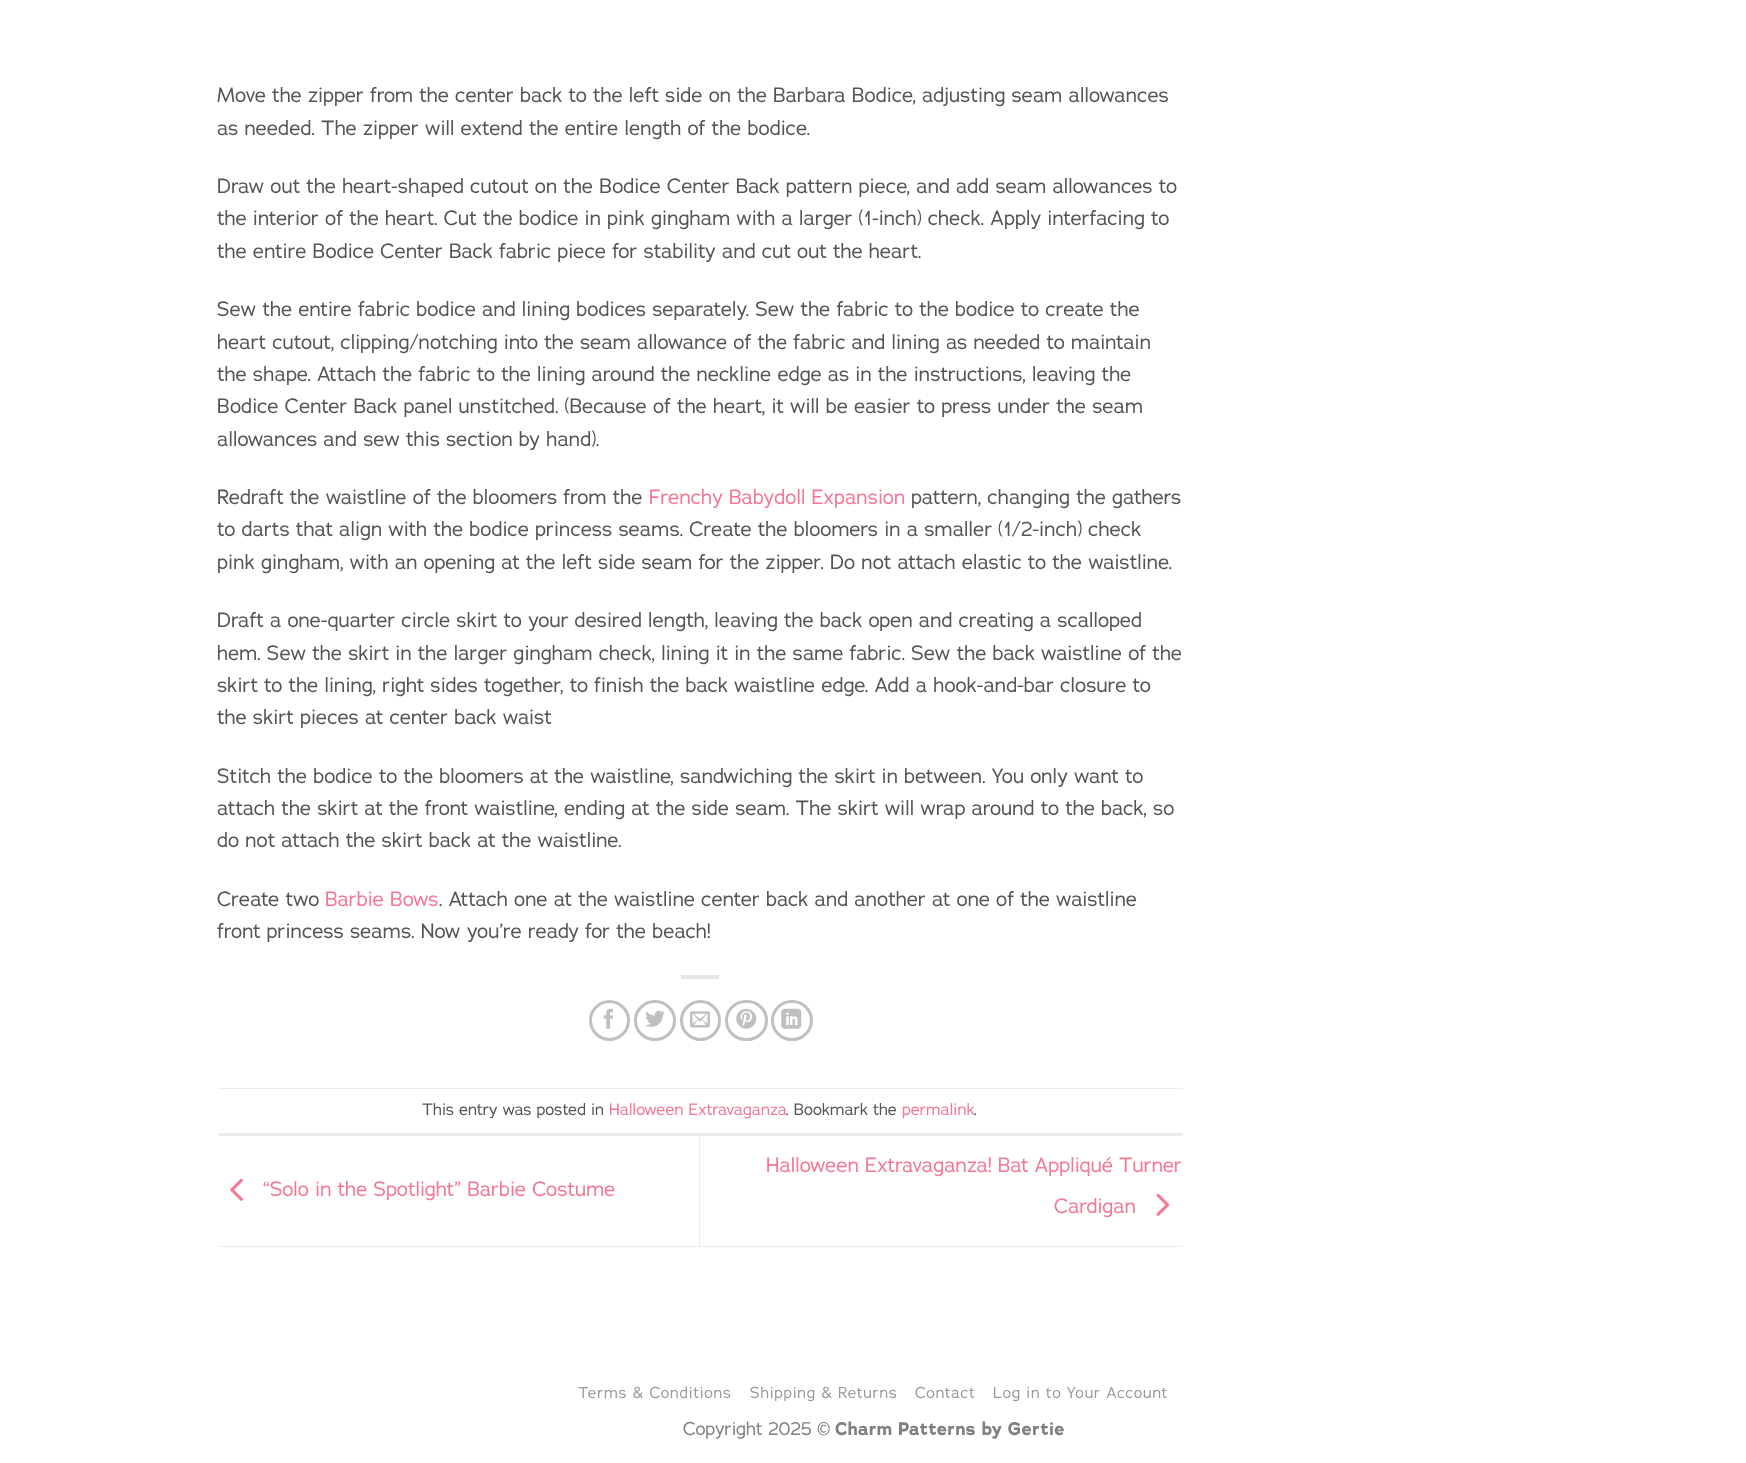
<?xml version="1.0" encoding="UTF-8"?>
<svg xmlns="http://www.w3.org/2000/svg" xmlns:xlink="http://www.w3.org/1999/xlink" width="1746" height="1463">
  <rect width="100%" height="100%" fill="#ffffff" />
  <rect x="681" y="975" width="38" height="4" fill="#e6e6e6" />
  <circle cx="609.5" cy="1020.5" r="19" fill="none" stroke="#c0c0c0" stroke-width="3" />
  <image x="603" y="1008" width="11" height="21" xlink:href="image1.png" />
  <rect x="635.5" y="1001.5" width="39" height="38" rx="19" fill="none" stroke="#c0c0c0" stroke-width="3" />
  <image x="645" y="1010" width="20" height="17" xlink:href="image2.png" />
  <circle cx="700.5" cy="1020.5" r="19" fill="none" stroke="#c0c0c0" stroke-width="3" />
  <image x="690" y="1011" width="20" height="17" xlink:href="image3.png" />
  <rect x="726.5" y="1001.5" width="40" height="38" rx="19" fill="none" stroke="#c0c0c0" stroke-width="3" />
  <image x="736" y="1008" width="21" height="21" xlink:href="image4.png" />
  <rect x="772.5" y="1001.5" width="39" height="38" rx="19" fill="none" stroke="#c0c0c0" stroke-width="3" />
  <image x="781" y="1008" width="21" height="21" xlink:href="image5.png" />
  <rect x="218" y="1088" width="965" height="1" fill="#ececec" />
  <rect x="218" y="1133" width="965" height="3" fill="#ececec" />
  <rect x="218" y="1246" width="965" height="1" fill="#ececec" />
  <image x="230" y="1178" width="14" height="23" xlink:href="image6.png" />
  <rect x="699" y="1136" width="1" height="110" fill="#ececec" />
  <image x="1156" y="1193" width="14" height="23" xlink:href="image7.png" />
  <text x="217" y="102" style="font-family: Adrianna; font-size: 20.2px; fill: #555555">Move the zipper from the center back to the left side on the Barbara Bodice, adjusting seam allowances</text>
  <text x="217" y="135" style="font-family: Adrianna; font-size: 20.2px; fill: #555555">as needed. The zipper will extend the entire length of the bodice.</text>
  <text x="217" y="193" style="font-family: Adrianna; font-size: 20.2px; fill: #555555">Draw out the heart-shaped cutout on the Bodice Center Back pattern piece, and add seam allowances to</text>
  <text x="217" y="225" style="font-family: Adrianna; font-size: 20.2px; fill: #555555">the interior of the heart. Cut the bodice in pink gingham with a larger (1-inch) check. Apply interfacing to</text>
  <text x="217" y="258" style="font-family: Adrianna; font-size: 20.2px; fill: #555555">the entire Bodice Center Back fabric piece for stability and cut out the heart.</text>
  <text x="217" y="316" style="font-family: Adrianna; font-size: 20.2px; fill: #555555">Sew the entire fabric bodice and lining bodices separately. Sew the fabric to the bodice to create the</text>
  <text x="217" y="349" style="font-family: Adrianna; font-size: 20.2px; fill: #555555">heart cutout, clipping/notching into the seam allowance of the fabric and lining as needed to maintain</text>
  <text x="217" y="381" style="font-family: Adrianna; font-size: 20.2px; fill: #555555">the shape. Attach the fabric to the lining around the neckline edge as in the instructions, leaving the</text>
  <text x="217" y="413" style="font-family: Adrianna; font-size: 20.2px; fill: #555555">Bodice Center Back panel unstitched. (Because of the heart, it will be easier to press under the seam</text>
  <text x="217" y="446" style="font-family: Adrianna; font-size: 20.2px; fill: #555555">allowances and sew this section by hand).</text>
  <text x="217" y="504" style="font-family: Adrianna; font-size: 20.2px; fill: #555555">Redraft the waistline of the bloomers from the</text>
  <text x="649" y="504" style="font-family: Adrianna; font-size: 20.2px; fill: #f27893">Frenchy Babydoll Expansion</text>
  <text x="911" y="504" style="font-family: Adrianna; font-size: 20.2px; fill: #555555">pattern, changing the gathers</text>
  <text x="217" y="536" style="font-family: Adrianna; font-size: 20.2px; fill: #555555">to darts that align with the bodice princess seams. Create the bloomers in a smaller (1/2-inch) check</text>
  <text x="217" y="569" style="font-family: Adrianna; font-size: 20.2px; fill: #555555">pink gingham, with an opening at the left side seam for the zipper. Do not attach elastic to the waistline.</text>
  <text x="217" y="627" style="font-family: Adrianna; font-size: 20.2px; fill: #555555">Draft a one-quarter circle skirt to your desired length, leaving the back open and creating a scalloped</text>
  <text x="217" y="660" style="font-family: Adrianna; font-size: 20.2px; fill: #555555">hem. Sew the skirt in the larger gingham check, lining it in the same fabric. Sew the back waistline of the</text>
  <text x="217" y="692" style="font-family: Adrianna; font-size: 20.2px; fill: #555555">skirt to the lining, right sides together, to finish the back waistline edge. Add a hook-and-bar closure to</text>
  <text x="217" y="724" style="font-family: Adrianna; font-size: 20.2px; fill: #555555">the skirt pieces at center back waist</text>
  <text x="217" y="783" style="font-family: Adrianna; font-size: 20.2px; fill: #555555">Stitch the bodice to the bloomers at the waistline, sandwiching the skirt in between. You only want to</text>
  <text x="217" y="815" style="font-family: Adrianna; font-size: 20.2px; fill: #555555">attach the skirt at the front waistline, ending at the side seam. The skirt will wrap around to the back, so</text>
  <text x="217" y="847" style="font-family: Adrianna; font-size: 20.2px; fill: #555555">do not attach the skirt back at the waistline.</text>
  <text x="217" y="906" style="font-family: Adrianna; font-size: 20.2px; fill: #555555">Create two</text>
  <text x="325" y="906" style="font-family: Adrianna; font-size: 20.2px; fill: #f27893">Barbie Bows</text>
  <text x="439" y="906" style="font-family: Adrianna; font-size: 20.2px; fill: #555555">. Attach one at the waistline center back and another at one of the waistline</text>
  <text x="217" y="938" style="font-family: Adrianna; font-size: 20.2px; fill: #555555">front princess seams. Now you’re ready for the beach!</text>
  <text x="422" y="1115" style="font-family: Adrianna; font-size: 16.2px; fill: #555555">This entry was posted in</text>
  <text x="609" y="1115" style="font-family: Adrianna; font-size: 16.2px; fill: #f27893">Halloween Extravaganza</text>
  <text x="786" y="1115" style="font-family: Adrianna; font-size: 16.2px; fill: #555555">. Bookmark the</text>
  <text x="902" y="1115" style="font-family: Adrianna; font-size: 16.2px; fill: #f27893">permalink</text>
  <text x="974" y="1115" style="font-family: Adrianna; font-size: 16.2px; fill: #555555">.</text>
  <text x="263" y="1196" style="font-family: Adrianna; font-size: 20.2px; fill: #f27893">“Solo in the Spotlight” Barbie Costume</text>
  <text x="766" y="1172" style="font-family: Adrianna; font-size: 20.2px; fill: #f27893">Halloween Extravaganza! Bat Appliqué Turner</text>
  <text x="1054" y="1213" style="font-family: Adrianna; font-size: 20.2px; fill: #f27893">Cardigan</text>
  <text x="578" y="1398" style="font-family: Adrianna; font-size: 15.5px; letter-spacing: 0.75px; fill: #999999">Terms &amp; Conditions</text>
  <text x="750" y="1398" style="font-family: Adrianna; font-size: 15.5px; letter-spacing: 0.75px; fill: #999999">Shipping &amp; Returns</text>
  <text x="915" y="1398" style="font-family: Adrianna; font-size: 15.5px; letter-spacing: 0.75px; fill: #999999">Contact</text>
  <text x="993" y="1398" style="font-family: Adrianna; font-size: 15.5px; letter-spacing: 0.75px; fill: #999999">Log in to Your Account</text>
  <text x="683" y="1435" style="font-family: Adrianna; font-size: 18.25px; fill: #808080">Copyright 2025 ©</text>
  <text x="835" y="1435" style="font-family: Adrianna; font-size: 18.25px; font-weight: bold; fill: #808080">Charm Patterns by Gertie</text>
</svg>
